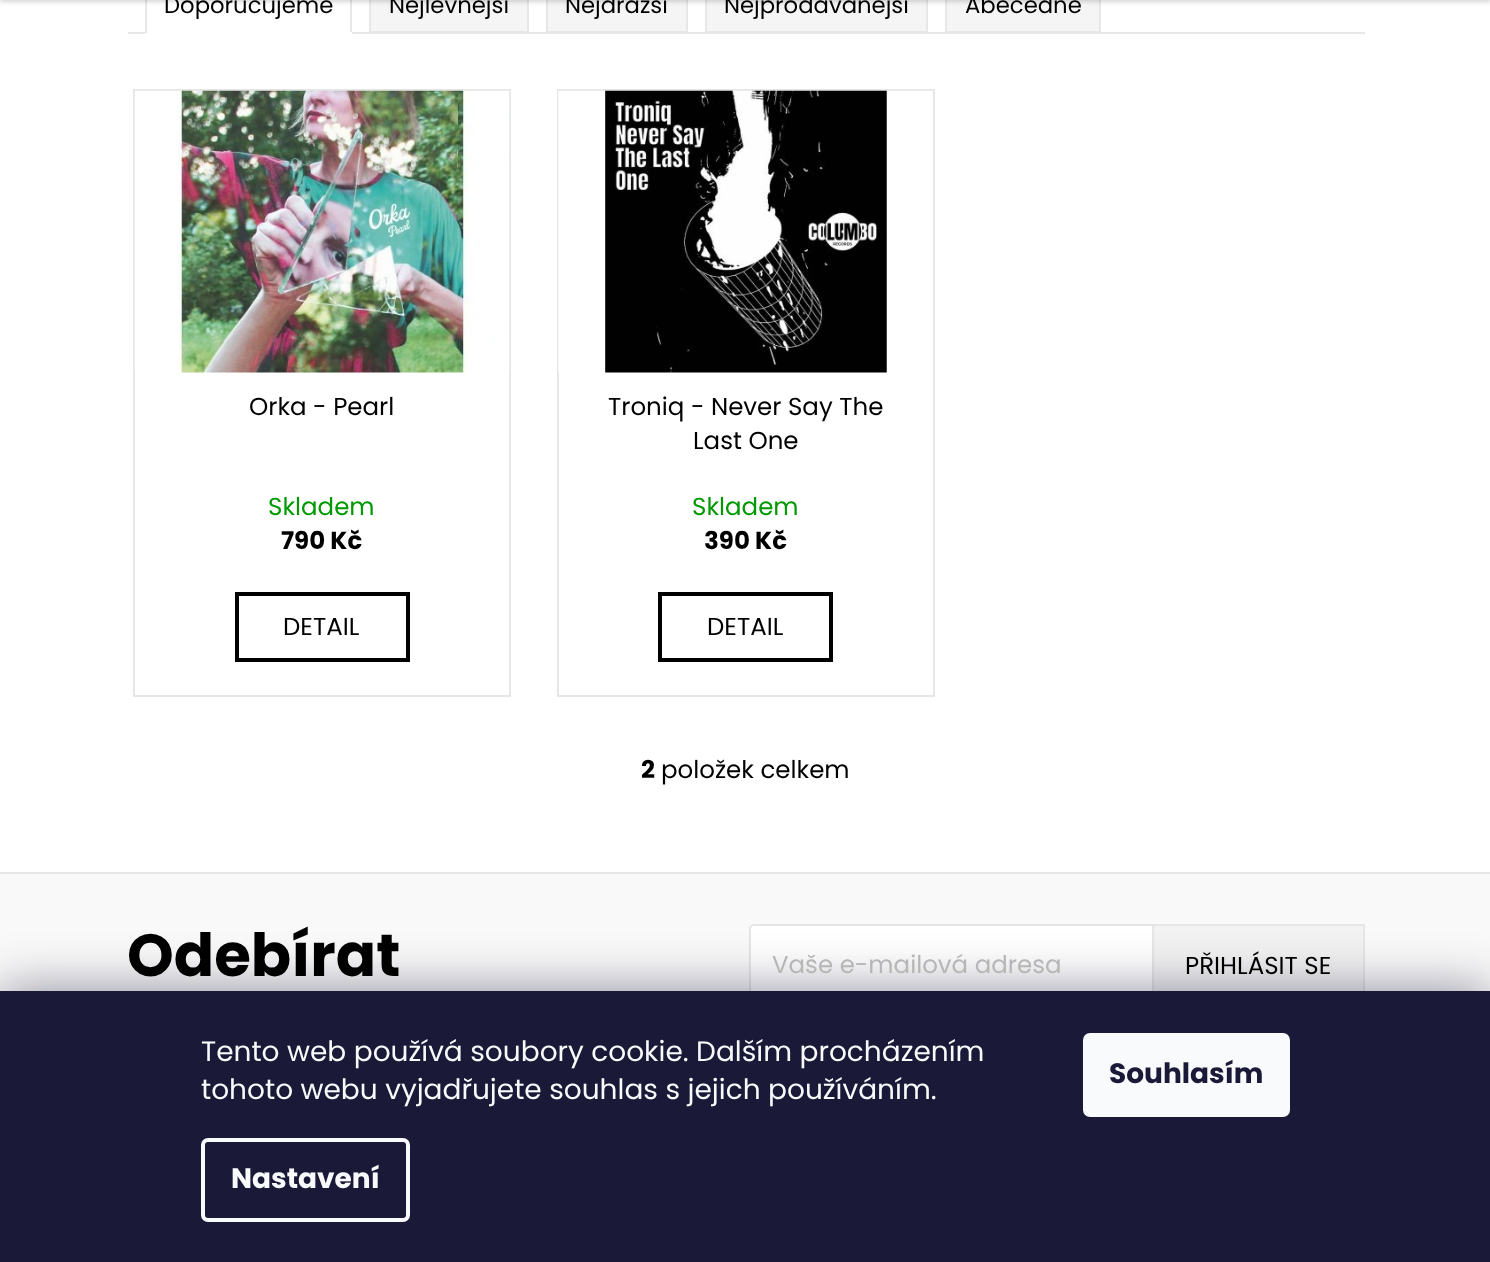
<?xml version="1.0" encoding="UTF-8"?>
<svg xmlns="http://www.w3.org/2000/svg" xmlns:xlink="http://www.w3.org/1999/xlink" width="1490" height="1262">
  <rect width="100%" height="100%" fill="#ffffff" />
  <rect x="128" y="32" width="1237" height="2" fill="#e7e7e7" />
  <rect x="350" width="2" height="33" fill="#e7e7e7" />
  <rect x="145" y="32" width="207" height="2" fill="#ffffff" />
  <rect x="145" width="2" height="33" fill="#e7e7e7" />
  <rect x="370" y="-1" width="158" height="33" fill="#f5f5f5" stroke="#e7e7e7" stroke-width="2" />
  <rect x="547" y="-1" width="140" height="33" fill="#f5f5f5" stroke="#e7e7e7" stroke-width="2" />
  <rect x="706" y="-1" width="221" height="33" fill="#f5f5f5" stroke="#e7e7e7" stroke-width="2" />
  <rect x="946" y="-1" width="154" height="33" fill="#f5f5f5" stroke="#e7e7e7" stroke-width="2" />
  <rect y="-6" width="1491" height="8" fill="#000000" fill-opacity="0.16" filter="blur(2px)" />
  <rect x="134" y="90" width="376" height="606" fill="none" stroke="#e6e6e6" stroke-width="2" />
  <image x="134" y="90" width="376" height="283" xlink:href="image1.png" />
  <rect x="237" y="594" width="171" height="66" fill="none" stroke="#000000" stroke-width="4" />
  <rect x="558" y="90" width="376" height="606" fill="none" stroke="#e6e6e6" stroke-width="2" />
  <image x="558" y="90" width="375" height="283" xlink:href="image2.png" />
  <rect x="660" y="594" width="171" height="66" fill="none" stroke="#000000" stroke-width="4" />
  <rect y="874" width="1490" height="117" fill="#f9f9f9" />
  <rect y="872" width="1490" height="2" fill="#e6e6e6" />
  <rect x="750" y="925" width="614" height="82" rx="4" fill="#ffffff" stroke="#e6e6e6" stroke-width="2" />
  <rect x="1154" y="926" width="209" height="65" fill="#f2f2f2" />
  <rect x="1153" y="925" width="211" height="82" fill="none" stroke="#e6e6e6" stroke-width="2" />
  <rect y="991" width="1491" height="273" fill="#1b1939" fill-opacity="0.5" filter="blur(26px)" />
  <rect y="991" width="1490" height="271" fill="#1a1937" />
  <rect x="203" y="1140" width="205" height="80" rx="5" fill="none" stroke="#f8fafb" stroke-width="4" />
  <rect x="1083" y="1033" width="207" height="84" rx="7" fill="#f8fafb" />
  <text x="164" y="13" style="font-family: Poppins; font-size: 22.75px; fill: #000000">Doporučujeme</text>
  <text x="389" y="13" style="font-family: Poppins; font-size: 22.75px; fill: #000000">Nejlevnější</text>
  <text x="565" y="13" style="font-family: Poppins; font-size: 22.75px; fill: #000000">Nejdražší</text>
  <text x="724" y="13" style="font-family: Poppins; font-size: 22.75px; fill: #000000">Nejprodávanější</text>
  <text x="965" y="13" style="font-family: Poppins; font-size: 22.75px; fill: #000000">Abecedně</text>
  <text x="249" y="415" style="font-family: Poppins; font-size: 24.5px; fill: #000000">Orka - Pearl</text>
  <text x="268" y="515" style="font-family: Poppins; font-size: 24.5px; fill: #009901">Skladem</text>
  <text x="281" y="549" style="font-family: Poppins; font-size: 24.5px; font-weight: bold; fill: #000000">790 Kč</text>
  <text x="283" y="635" style="font-family: Poppins; font-size: 24.5px; fill: #000000">DETAIL</text>
  <text x="608" y="415" style="font-family: Poppins; font-size: 24.5px; fill: #000000">Troniq - Never Say The</text>
  <text x="693" y="449" style="font-family: Poppins; font-size: 24.5px; fill: #000000">Last One</text>
  <text x="692" y="515" style="font-family: Poppins; font-size: 24.5px; fill: #009901">Skladem</text>
  <text x="704" y="549" style="font-family: Poppins; font-size: 24.5px; font-weight: bold; fill: #000000">390 Kč</text>
  <text x="707" y="635" style="font-family: Poppins; font-size: 24.5px; fill: #000000">DETAIL</text>
  <text x="641" y="778" style="font-family: Poppins; font-size: 24.5px; font-weight: bold; fill: #000000">2</text>
  <text x="661" y="778" style="font-family: Poppins; font-size: 24.5px; fill: #000000">položek celkem</text>
  <text x="127" y="976" style="font-family: Poppins; font-size: 59.5px; font-weight: bold; fill: #000000">Odebírat</text>
  <text x="772" y="973" style="font-family: Poppins; font-size: 24.5px; fill: #b6b6b6">Vaše e-mailová adresa</text>
  <text x="1185" y="974" style="font-family: Poppins; font-size: 24.5px; fill: #000000">PŘIHLÁSIT SE</text>
  <text x="201" y="1061" style="font-family: Poppins; font-size: 28px; fill: #f8fafb">Tento web používá soubory cookie. Dalším procházením</text>
  <text x="201" y="1099" style="font-family: Poppins; font-size: 28px; fill: #f8fafb">tohoto webu vyjadřujete souhlas s jejich používáním.</text>
  <text x="231" y="1188" style="font-family: Poppins; font-size: 28px; font-weight: bold; fill: #f8fafb">Nastavení</text>
  <text x="1109" y="1083" style="font-family: Poppins; font-size: 28px; font-weight: bold; fill: #1a1937">Souhlasím</text>
</svg>
